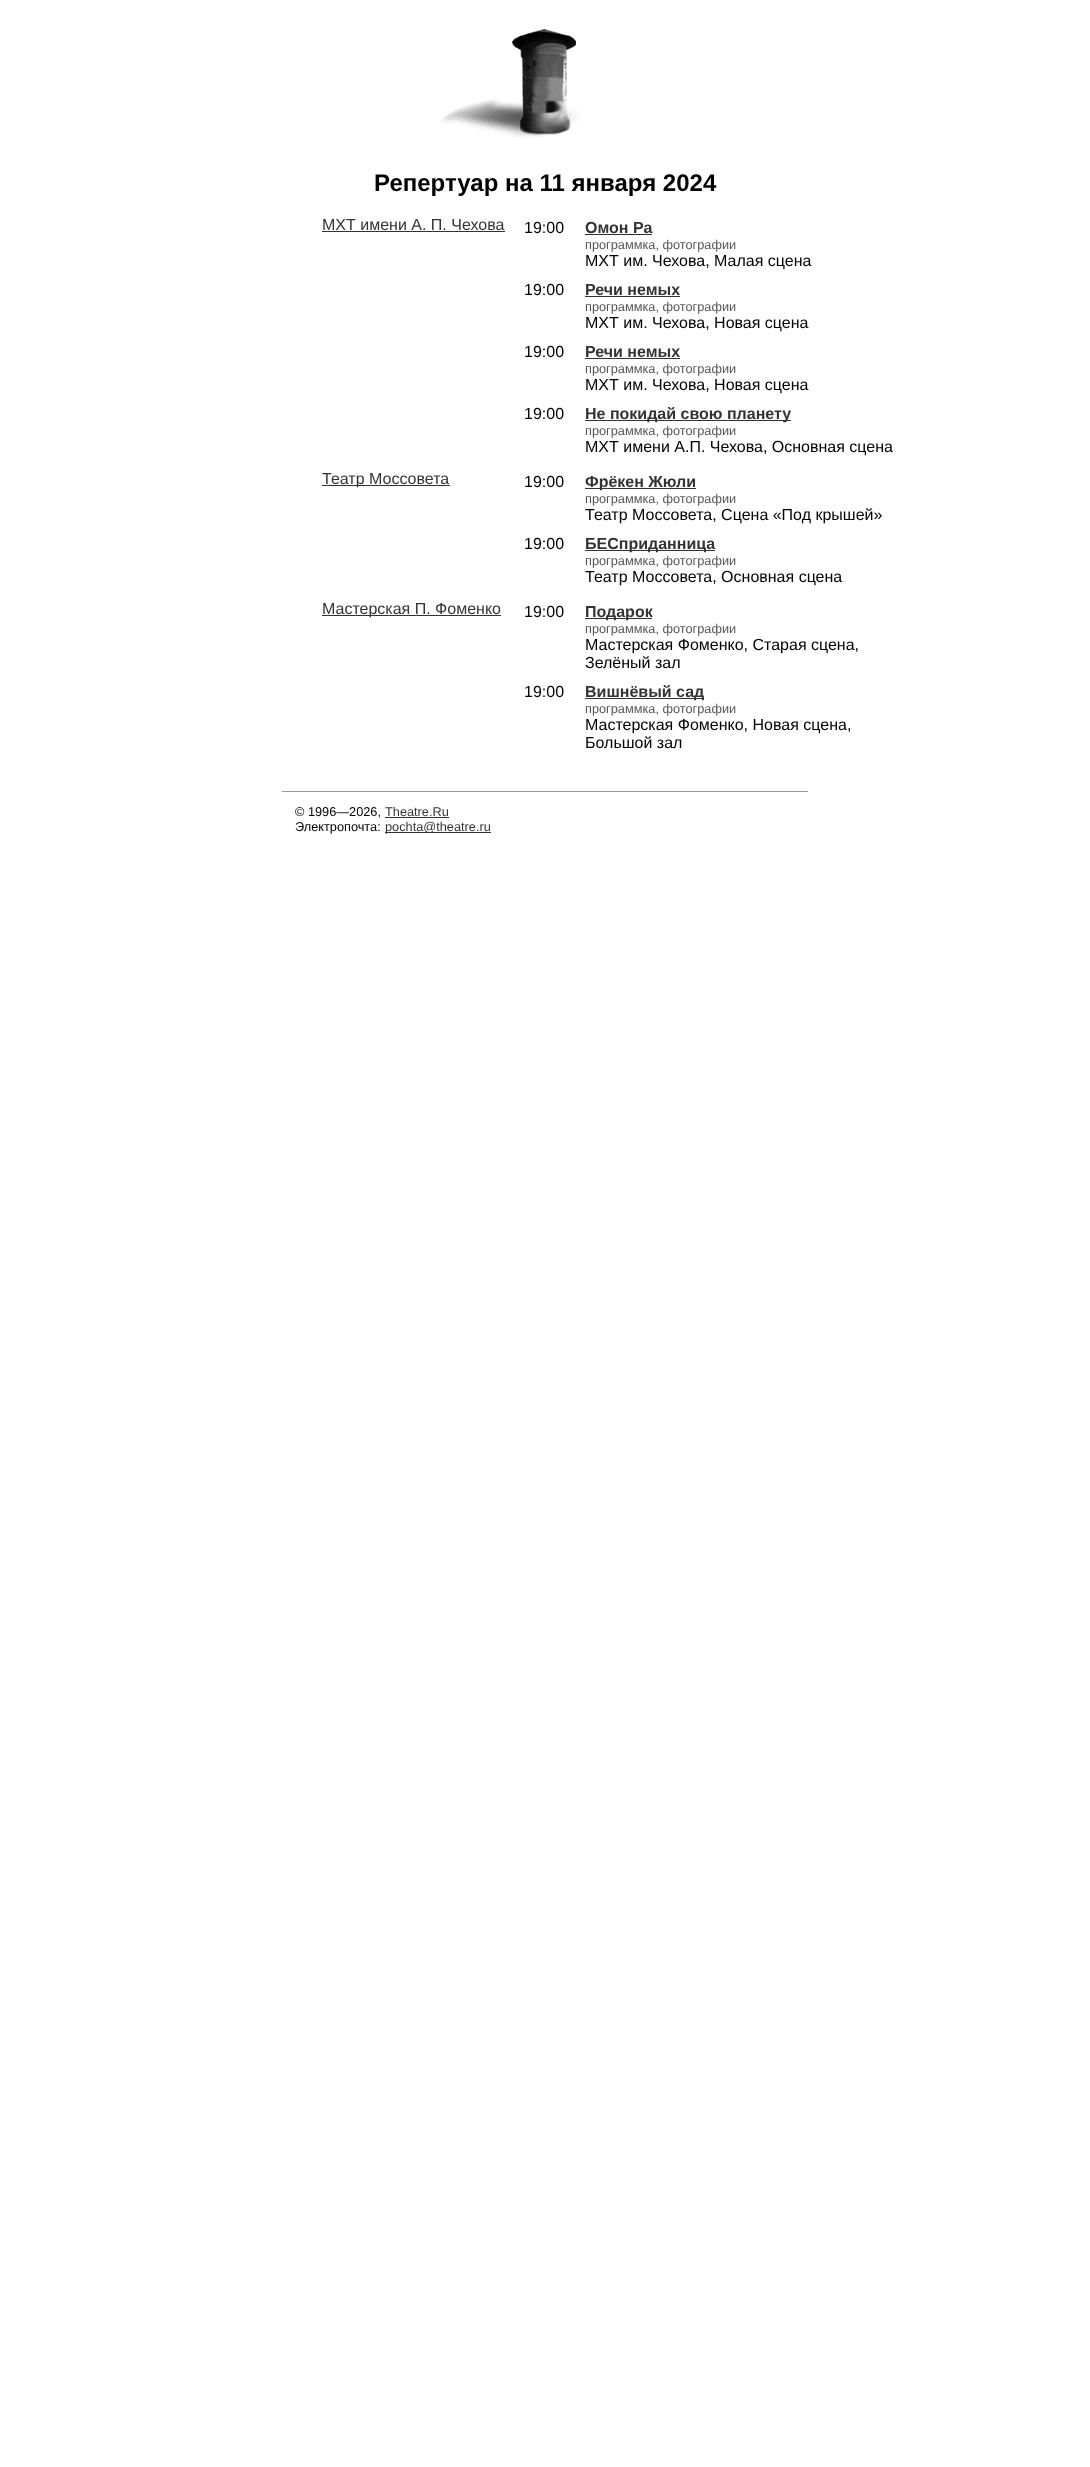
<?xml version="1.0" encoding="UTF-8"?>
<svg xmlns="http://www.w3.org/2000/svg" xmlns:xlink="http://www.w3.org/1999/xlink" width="1090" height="2467">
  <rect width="100%" height="100%" fill="#ffffff" />
  <image x="439" y="29" width="146" height="111" xlink:href="image1.png" />
  <rect x="322" y="231" width="183" height="1" fill="#333333" />
  <rect x="585" y="234" width="67" height="1" fill="#333333" />
  <rect x="585" y="296" width="95" height="1" fill="#333333" />
  <rect x="585" y="358" width="95" height="1" fill="#333333" />
  <rect x="585" y="420" width="206" height="1" fill="#333333" />
  <rect x="322" y="485" width="128" height="1" fill="#333333" />
  <rect x="585" y="488" width="111" height="1" fill="#333333" />
  <rect x="585" y="550" width="130" height="1" fill="#333333" />
  <rect x="322" y="615" width="179" height="1" fill="#333333" />
  <rect x="585" y="618" width="67" height="1" fill="#333333" />
  <rect x="585" y="698" width="119" height="1" fill="#333333" />
  <rect x="282" y="791" width="526" height="1" fill="#999999" />
  <rect x="385" y="817" width="64" height="1" fill="#333333" />
  <rect x="385" y="832" width="106" height="1" fill="#333333" />
  <text x="374" y="191" style="font-family: Liberation Sans; font-size: 24px; font-weight: bold; fill: #000000">Репертуар на 11 января 2024</text>
  <text x="322" y="230" style="font-family: Liberation Sans; font-size: 16px; fill: #333333">МХТ имени А. П. Чехова</text>
  <text x="524" y="233" style="font-family: Liberation Sans; font-size: 16px; fill: #000000">19:00</text>
  <text x="585" y="233" style="font-family: Liberation Sans; font-size: 16px; font-weight: bold; fill: #333333">Омон Ра</text>
  <text x="585" y="249" style="font-family: Liberation Sans; font-size: 12.75px; fill: #555555">программка, фотографии</text>
  <text x="585" y="266" style="font-family: Liberation Sans; font-size: 16px; fill: #000000">МХТ им. Чехова, Малая сцена</text>
  <text x="524" y="295" style="font-family: Liberation Sans; font-size: 16px; fill: #000000">19:00</text>
  <text x="585" y="295" style="font-family: Liberation Sans; font-size: 16px; font-weight: bold; fill: #333333">Речи немых</text>
  <text x="585" y="311" style="font-family: Liberation Sans; font-size: 12.75px; fill: #555555">программка, фотографии</text>
  <text x="585" y="328" style="font-family: Liberation Sans; font-size: 16px; fill: #000000">МХТ им. Чехова, Новая сцена</text>
  <text x="524" y="357" style="font-family: Liberation Sans; font-size: 16px; fill: #000000">19:00</text>
  <text x="585" y="357" style="font-family: Liberation Sans; font-size: 16px; font-weight: bold; fill: #333333">Речи немых</text>
  <text x="585" y="373" style="font-family: Liberation Sans; font-size: 12.75px; fill: #555555">программка, фотографии</text>
  <text x="585" y="390" style="font-family: Liberation Sans; font-size: 16px; fill: #000000">МХТ им. Чехова, Новая сцена</text>
  <text x="524" y="419" style="font-family: Liberation Sans; font-size: 16px; fill: #000000">19:00</text>
  <text x="585" y="419" style="font-family: Liberation Sans; font-size: 16px; font-weight: bold; fill: #333333">Не покидай свою планету</text>
  <text x="585" y="435" style="font-family: Liberation Sans; font-size: 12.75px; fill: #555555">программка, фотографии</text>
  <text x="585" y="452" style="font-family: Liberation Sans; font-size: 16px; fill: #000000">МХТ имени А.П. Чехова, Основная сцена</text>
  <text x="322" y="484" style="font-family: Liberation Sans; font-size: 16px; fill: #333333">Театр Моссовета</text>
  <text x="524" y="487" style="font-family: Liberation Sans; font-size: 16px; fill: #000000">19:00</text>
  <text x="585" y="487" style="font-family: Liberation Sans; font-size: 16px; font-weight: bold; fill: #333333">Фрёкен Жюли</text>
  <text x="585" y="503" style="font-family: Liberation Sans; font-size: 12.75px; fill: #555555">программка, фотографии</text>
  <text x="585" y="520" style="font-family: Liberation Sans; font-size: 16px; fill: #000000">Театр Моссовета, Сцена «Под крышей»</text>
  <text x="524" y="549" style="font-family: Liberation Sans; font-size: 16px; fill: #000000">19:00</text>
  <text x="585" y="549" style="font-family: Liberation Sans; font-size: 16px; font-weight: bold; fill: #333333">БЕСприданница</text>
  <text x="585" y="565" style="font-family: Liberation Sans; font-size: 12.75px; fill: #555555">программка, фотографии</text>
  <text x="585" y="582" style="font-family: Liberation Sans; font-size: 16px; fill: #000000">Театр Моссовета, Основная сцена</text>
  <text x="322" y="614" style="font-family: Liberation Sans; font-size: 16px; fill: #333333">Мастерская П. Фоменко</text>
  <text x="524" y="617" style="font-family: Liberation Sans; font-size: 16px; fill: #000000">19:00</text>
  <text x="585" y="617" style="font-family: Liberation Sans; font-size: 16px; font-weight: bold; fill: #333333">Подарок</text>
  <text x="585" y="633" style="font-family: Liberation Sans; font-size: 12.75px; fill: #555555">программка, фотографии</text>
  <text x="585" y="650" style="font-family: Liberation Sans; font-size: 16px; fill: #000000">Мастерская Фоменко, Старая сцена,</text>
  <text x="585" y="668" style="font-family: Liberation Sans; font-size: 16px; fill: #000000">Зелёный зал</text>
  <text x="524" y="697" style="font-family: Liberation Sans; font-size: 16px; fill: #000000">19:00</text>
  <text x="585" y="697" style="font-family: Liberation Sans; font-size: 16px; font-weight: bold; fill: #333333">Вишнёвый сад</text>
  <text x="585" y="713" style="font-family: Liberation Sans; font-size: 12.75px; fill: #555555">программка, фотографии</text>
  <text x="585" y="730" style="font-family: Liberation Sans; font-size: 16px; fill: #000000">Мастерская Фоменко, Новая сцена,</text>
  <text x="585" y="748" style="font-family: Liberation Sans; font-size: 16px; fill: #000000">Большой зал</text>
  <text x="295" y="816" style="font-family: Liberation Sans; font-size: 12.75px; fill: #000000">© 1996—2026,</text>
  <text x="385" y="816" style="font-family: Liberation Sans; font-size: 12.75px; fill: #333333">Theatre.Ru</text>
  <text x="295" y="831" style="font-family: Liberation Sans; font-size: 12.75px; fill: #000000">Электропочта:</text>
  <text x="385" y="831" style="font-family: Liberation Sans; font-size: 12.75px; fill: #333333">pochta@theatre.ru</text>
</svg>
